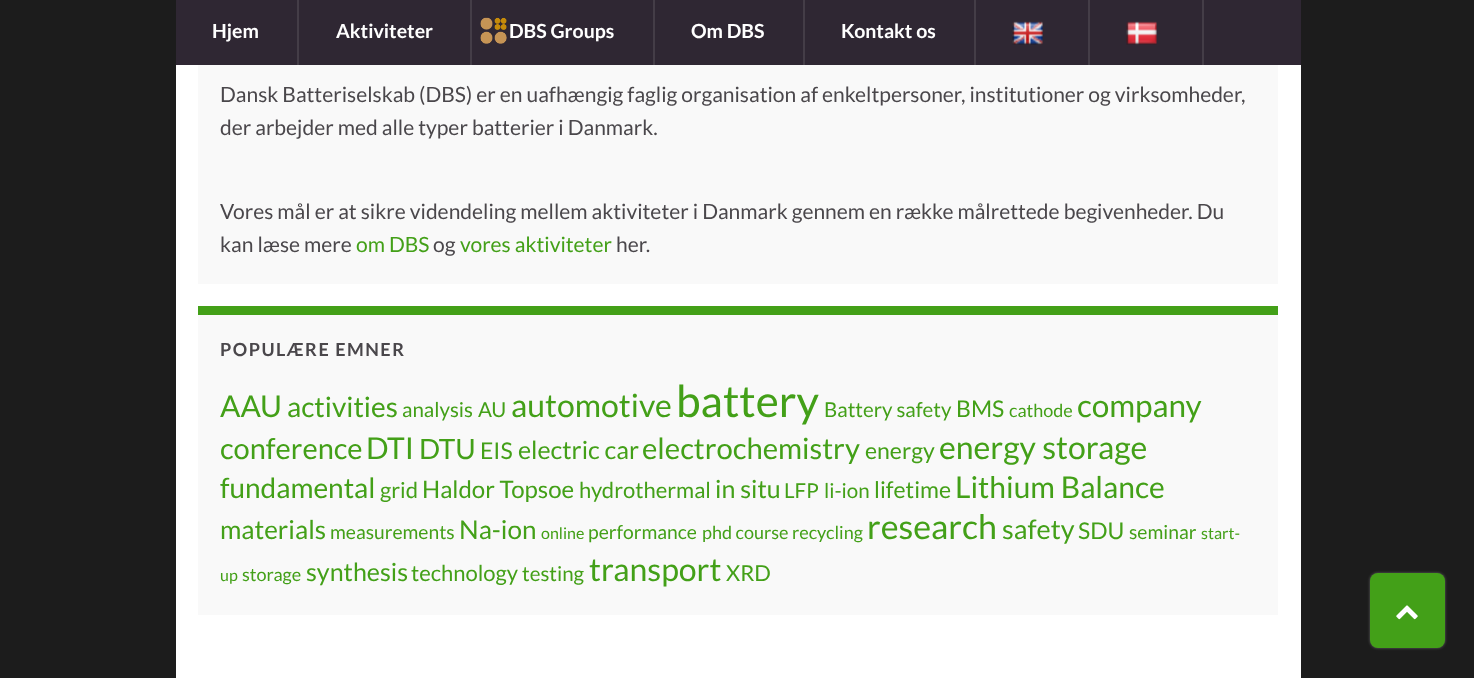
<?xml version="1.0" encoding="UTF-8"?>
<svg xmlns="http://www.w3.org/2000/svg" xmlns:xlink="http://www.w3.org/1999/xlink" width="1474" height="678">
  <rect width="100%" height="100%" fill="#1c1c1c" />
  <rect x="176" width="1125" height="65" fill="#2f2733" />
  <rect x="297" width="2" height="65" fill="#443d47" />
  <rect x="470" width="2" height="65" fill="#443d47" />
  <rect x="653" width="2" height="65" fill="#443d47" />
  <image x="480" y="17" width="27" height="27" xlink:href="image1.png" />
  <rect x="803" width="2" height="65" fill="#443d47" />
  <rect x="974" width="2" height="65" fill="#443d47" />
  <rect x="1088" width="2" height="65" fill="#443d47" />
  <image x="1012" y="21" width="31" height="24" xlink:href="image2.png" />
  <rect x="1202" width="2" height="65" fill="#443d47" />
  <image x="1126" y="21" width="31" height="24" xlink:href="image3.png" />
  <rect x="176" y="65" width="1125" height="613" fill="#ffffff" />
  <rect x="198" y="65" width="1080" height="219" fill="#f9f9f9" />
  <rect x="198" y="315" width="1080" height="300" fill="#f9f9f9" />
  <rect x="198" y="306" width="1080" height="9" fill="#43a018" />
  <rect x="1370" y="573" width="75" height="75" rx="8" fill="#ffffff" fill-opacity="0.3" filter="blur(1.5px)" />
  <rect x="1370" y="573" width="75" height="75" rx="8" fill="#43a018" />
  <image x="1396" y="605" width="22" height="15" xlink:href="image4.png" />
  <text x="212" y="38" style="font-family: Lato; font-size: 19.5px; font-weight: bold; fill: #ffffff">Hjem</text>
  <text x="336" y="38" style="font-family: Lato; font-size: 19.5px; font-weight: bold; fill: #ffffff">Aktiviteter</text>
  <text x="509" y="38" style="font-family: Lato; font-size: 19.5px; font-weight: bold; fill: #ffffff">DBS Groups</text>
  <text x="691" y="38" style="font-family: Lato; font-size: 19.5px; font-weight: bold; fill: #ffffff">Om DBS</text>
  <text x="841" y="38" style="font-family: Lato; font-size: 19.5px; font-weight: bold; fill: #ffffff">Kontakt os</text>
  <text x="220" y="102" style="font-family: Lato; font-size: 21px; fill: #4a474b">Dansk Batteriselskab (DBS) er en uafhængig faglig organisation af enkeltpersoner, institutioner og virksomheder,</text>
  <text x="220" y="135" style="font-family: Lato; font-size: 21px; fill: #4a474b">der arbejder med alle typer batterier i Danmark.</text>
  <text x="220" y="219" style="font-family: Lato; font-size: 21px; fill: #4a474b">Vores mål er at sikre videndeling mellem aktiviteter i Danmark gennem en række målrettede begivenheder. Du</text>
  <text x="220" y="252" style="font-family: Lato; font-size: 21px; fill: #4a474b">kan læse mere</text>
  <text x="356" y="252" style="font-family: Lato; font-size: 21px; fill: #43a018">om DBS</text>
  <text x="433" y="252" style="font-family: Lato; font-size: 21px; fill: #4a474b">og</text>
  <text x="460" y="252" style="font-family: Lato; font-size: 21px; fill: #43a018">vores aktiviteter</text>
  <text x="616" y="252" style="font-family: Lato; font-size: 21px; fill: #4a474b">her.</text>
  <text x="220" y="356" style="font-family: Lato; font-size: 18px; font-weight: bold; letter-spacing: 1.5px; fill: #4a474b">POPULÆRE EMNER</text>
  <text x="220" y="417" style="font-family: Lato; font-size: 30px; fill: #43a018">AAU</text>
  <text x="287" y="417" style="font-family: Lato; font-size: 28px; fill: #43a018">activities</text>
  <text x="402" y="417" style="font-family: Lato; font-size: 20.5px; fill: #43a018">analysis</text>
  <text x="478" y="417" style="font-family: Lato; font-size: 20.5px; fill: #43a018">AU</text>
  <text x="511" y="417" style="font-family: Lato; font-size: 32px; fill: #43a018">automotive</text>
  <text x="676" y="417" style="font-family: Lato; font-size: 44px; fill: #43a018">battery</text>
  <text x="824" y="417" style="font-family: Lato; font-size: 20.5px; fill: #43a018">Battery safety</text>
  <text x="956" y="417" style="font-family: Lato; font-size: 23px; fill: #43a018">BMS</text>
  <text x="1009" y="417" style="font-family: Lato; font-size: 18px; fill: #43a018">cathode</text>
  <text x="1077" y="417" style="font-family: Lato; font-size: 31.5px; fill: #43a018">company</text>
  <text x="220" y="459" style="font-family: Lato; font-size: 29px; fill: #43a018">conference</text>
  <text x="366" y="459" style="font-family: Lato; font-size: 30px; fill: #43a018">DTI</text>
  <text x="419" y="459" style="font-family: Lato; font-size: 28px; fill: #43a018">DTU</text>
  <text x="480" y="459" style="font-family: Lato; font-size: 23px; fill: #43a018">EIS</text>
  <text x="518" y="459" style="font-family: Lato; font-size: 25px; fill: #43a018">electric car</text>
  <text x="642" y="459" style="font-family: Lato; font-size: 29.25px; fill: #43a018">electrochemistry</text>
  <text x="865" y="459" style="font-family: Lato; font-size: 23px; fill: #43a018">energy</text>
  <text x="939" y="459" style="font-family: Lato; font-size: 32px; fill: #43a018">energy storage</text>
  <text x="220" y="498" style="font-family: Lato; font-size: 28px; fill: #43a018">fundamental</text>
  <text x="380" y="498" style="font-family: Lato; font-size: 22px; fill: #43a018">grid</text>
  <text x="422" y="498" style="font-family: Lato; font-size: 24px; fill: #43a018">Haldor Topsoe</text>
  <text x="579" y="498" style="font-family: Lato; font-size: 22px; fill: #43a018">hydrothermal</text>
  <text x="715" y="498" style="font-family: Lato; font-size: 25px; fill: #43a018">in situ</text>
  <text x="784" y="498" style="font-family: Lato; font-size: 20.5px; fill: #43a018">LFP</text>
  <text x="824" y="498" style="font-family: Lato; font-size: 20.5px; fill: #43a018">li-ion</text>
  <text x="874" y="498" style="font-family: Lato; font-size: 23px; fill: #43a018">lifetime</text>
  <text x="955" y="498" style="font-family: Lato; font-size: 30px; fill: #43a018">Lithium Balance</text>
  <text x="220" y="539" style="font-family: Lato; font-size: 26px; fill: #43a018">materials</text>
  <text x="330" y="539" style="font-family: Lato; font-size: 19.25px; fill: #43a018">measurements</text>
  <text x="459" y="539" style="font-family: Lato; font-size: 26px; fill: #43a018">Na-ion</text>
  <text x="541" y="539" style="font-family: Lato; font-size: 16px; fill: #43a018">online</text>
  <text x="588" y="539" style="font-family: Lato; font-size: 19.25px; fill: #43a018">performance</text>
  <text x="702" y="539" style="font-family: Lato; font-size: 18px; fill: #43a018">phd course</text>
  <text x="792" y="539" style="font-family: Lato; font-size: 18px; fill: #43a018">recycling</text>
  <text x="867" y="539" style="font-family: Lato; font-size: 34px; fill: #43a018">research</text>
  <text x="1002" y="539" style="font-family: Lato; font-size: 27px; fill: #43a018">safety</text>
  <text x="1078" y="539" style="font-family: Lato; font-size: 23px; fill: #43a018">SDU</text>
  <text x="1129" y="539" style="font-family: Lato; font-size: 19.25px; fill: #43a018">seminar</text>
  <text x="1201" y="539" style="font-family: Lato; font-size: 16px; fill: #43a018">start-</text>
  <text x="220" y="581" style="font-family: Lato; font-size: 16px; fill: #43a018">up</text>
  <text x="242" y="581" style="font-family: Lato; font-size: 18px; fill: #43a018">storage</text>
  <text x="306" y="581" style="font-family: Lato; font-size: 25px; fill: #43a018">synthesis</text>
  <text x="411" y="581" style="font-family: Lato; font-size: 22px; fill: #43a018">technology</text>
  <text x="522" y="581" style="font-family: Lato; font-size: 20.5px; fill: #43a018">testing</text>
  <text x="589" y="581" style="font-family: Lato; font-size: 32px; fill: #43a018">transport</text>
  <text x="726" y="581" style="font-family: Lato; font-size: 22px; fill: #43a018">XRD</text>
</svg>
